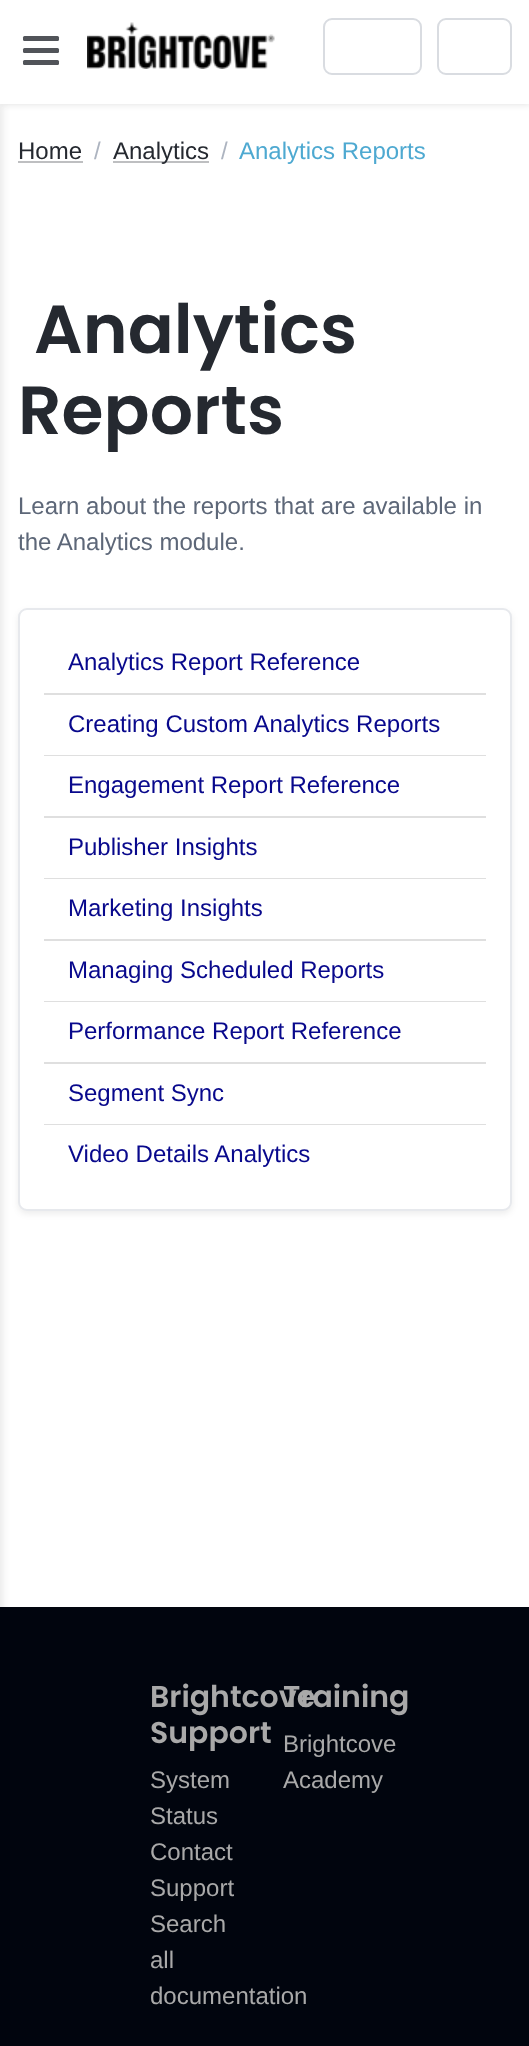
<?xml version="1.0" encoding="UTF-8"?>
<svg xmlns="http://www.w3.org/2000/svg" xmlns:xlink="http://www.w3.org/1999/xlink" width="529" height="2046">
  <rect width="100%" height="100%" fill="#ffffff" />
  <rect y="2" width="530" height="103" fill="#000000" fill-opacity="0.1" filter="blur(3px)" />
  <rect y="1607" width="529" height="439" fill="#01050e" />
  <rect x="-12" y="104" width="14" height="1942" fill="#000000" fill-opacity="0.1" filter="blur(4px)" />
  <rect width="529" height="104" fill="#ffffff" />
  <rect x="23" y="36" width="36" height="5" rx="1.5" fill="#515459" />
  <rect x="23" y="48" width="36" height="5" rx="1.5" fill="#515459" />
  <rect x="23" y="60" width="36" height="5" rx="1.5" fill="#515459" />
  <image x="87" y="22" width="188" height="47" xlink:href="image1.png" />
  <rect x="324" y="19" width="97" height="55" rx="8" fill="none" stroke="#d9dce1" stroke-width="2" />
  <rect x="438" y="19" width="73" height="55" rx="8" fill="none" stroke="#d9dce1" stroke-width="2" />
  <rect x="18" y="161" width="65" height="2" fill="#bebfc1" />
  <rect x="113" y="161" width="96" height="2" fill="#bebfc1" />
  <rect x="18" y="611" width="494" height="603" rx="9" fill="#000000" fill-opacity="0.07" filter="blur(3px)" />
  <rect x="19" y="609" width="492" height="601" rx="8" fill="#ffffff" stroke="#e7e9ed" stroke-width="2" />
  <rect x="44" y="693" width="442" height="2" fill="#dfdfdf" />
  <rect x="44" y="755" width="442" height="1" fill="#dfdfdf" />
  <rect x="44" y="816" width="442" height="2" fill="#dfdfdf" />
  <rect x="44" y="878" width="442" height="1" fill="#dfdfdf" />
  <rect x="44" y="939" width="442" height="2" fill="#dfdfdf" />
  <rect x="44" y="1001" width="442" height="1" fill="#dfdfdf" />
  <rect x="44" y="1062" width="442" height="2" fill="#dfdfdf" />
  <rect x="44" y="1124" width="442" height="1" fill="#dfdfdf" />
  <text x="18" y="159" style="font-family: Liberation Sans; font-size: 24px; fill: #252930">Home</text>
  <text x="94" y="159" style="font-family: Liberation Sans; font-size: 24px; fill: #adb4c0">/</text>
  <text x="113" y="159" style="font-family: Liberation Sans; font-size: 24px; fill: #252930">Analytics</text>
  <text x="221" y="159" style="font-family: Liberation Sans; font-size: 24px; fill: #adb4c0">/</text>
  <text x="239" y="159" style="font-family: Liberation Sans; font-size: 24px; fill: #4ea9d1">Analytics Reports</text>
  <text x="34" y="353" style="font-family: Poppins; font-size: 68px; font-weight: 600; fill: #252930">Analytics</text>
  <text x="18" y="434" style="font-family: Poppins; font-size: 68px; font-weight: 600; fill: #252930">Reports</text>
  <text x="18" y="514" style="font-family: Liberation Sans; font-size: 24px; fill: #5d6778">Learn about the reports that are available in</text>
  <text x="18" y="550" style="font-family: Liberation Sans; font-size: 24px; fill: #5d6778">the Analytics module.</text>
  <text x="68" y="670" style="font-family: Liberation Sans; font-size: 24px; fill: #08088c">Analytics Report Reference</text>
  <text x="68" y="732" style="font-family: Liberation Sans; font-size: 24px; fill: #08088c">Creating Custom Analytics Reports</text>
  <text x="68" y="793" style="font-family: Liberation Sans; font-size: 24px; fill: #08088c">Engagement Report Reference</text>
  <text x="68" y="855" style="font-family: Liberation Sans; font-size: 24px; fill: #08088c">Publisher Insights</text>
  <text x="68" y="916" style="font-family: Liberation Sans; font-size: 24px; fill: #08088c">Marketing Insights</text>
  <text x="68" y="978" style="font-family: Liberation Sans; font-size: 24px; fill: #08088c">Managing Scheduled Reports</text>
  <text x="68" y="1039" style="font-family: Liberation Sans; font-size: 24px; fill: #08088c">Performance Report Reference</text>
  <text x="68" y="1101" style="font-family: Liberation Sans; font-size: 24px; fill: #08088c">Segment Sync</text>
  <text x="68" y="1162" style="font-family: Liberation Sans; font-size: 24px; fill: #08088c">Video Details Analytics</text>
  <text x="150" y="1707" style="font-family: Poppins; font-size: 30px; font-weight: 600; fill: #a9a9a9">Brightcove</text>
  <text x="150" y="1743" style="font-family: Poppins; font-size: 30px; font-weight: 600; fill: #a9a9a9">Support</text>
  <text x="150" y="1788" style="font-family: Liberation Sans; font-size: 24px; fill: #a9a9a9">System</text>
  <text x="150" y="1824" style="font-family: Liberation Sans; font-size: 24px; fill: #a9a9a9">Status</text>
  <text x="150" y="1860" style="font-family: Liberation Sans; font-size: 24px; fill: #a9a9a9">Contact</text>
  <text x="150" y="1896" style="font-family: Liberation Sans; font-size: 24px; fill: #a9a9a9">Support</text>
  <text x="150" y="1932" style="font-family: Liberation Sans; font-size: 24px; fill: #a9a9a9">Search</text>
  <text x="150" y="1968" style="font-family: Liberation Sans; font-size: 24px; fill: #a9a9a9">all</text>
  <text x="150" y="2004" style="font-family: Liberation Sans; font-size: 24px; fill: #a9a9a9">documentation</text>
  <text x="283" y="1707" style="font-family: Poppins; font-size: 30px; font-weight: 600; fill: #a9a9a9">Training</text>
  <text x="283" y="1752" style="font-family: Liberation Sans; font-size: 24px; fill: #a9a9a9">Brightcove</text>
  <text x="283" y="1788" style="font-family: Liberation Sans; font-size: 24px; fill: #a9a9a9">Academy</text>
</svg>
